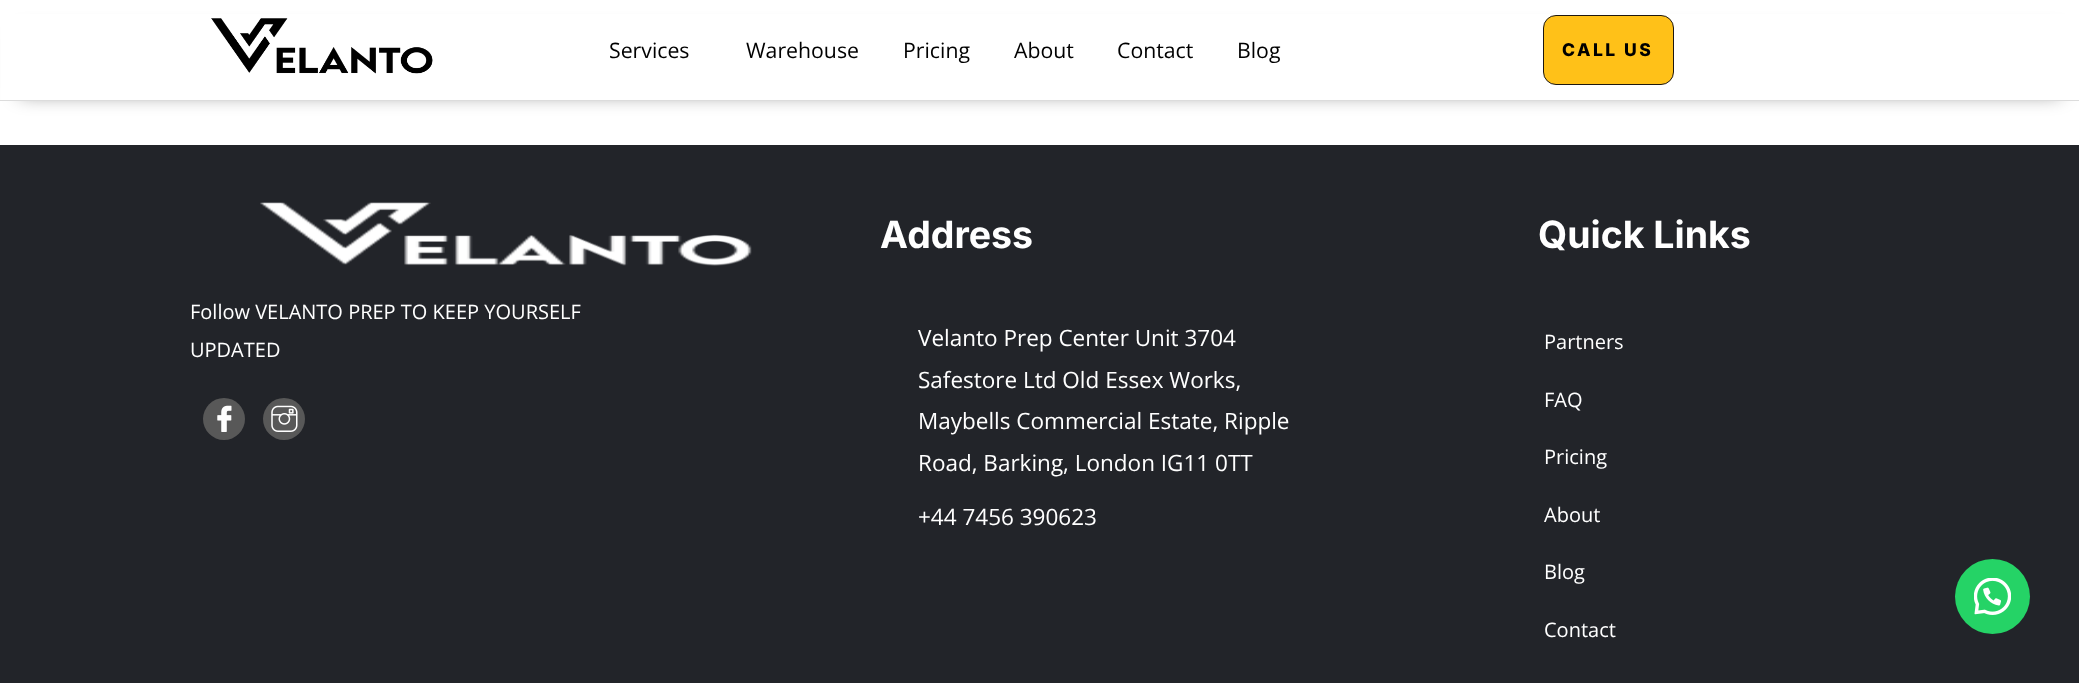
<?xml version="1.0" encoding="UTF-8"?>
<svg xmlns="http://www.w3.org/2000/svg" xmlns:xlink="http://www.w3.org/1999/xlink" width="2079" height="683">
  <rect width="100%" height="100%" fill="#ffffff" />
  <rect x="20" y="33" width="2040" height="61" fill="#000000" fill-opacity="0.5" filter="blur(9.5px)" />
  <rect x="1" y="14" width="2078" height="86" fill="#ffffff" />
  <rect y="100" width="2079" height="1" fill="#dcdcdc" />
  <image x="211" y="18" width="222" height="56" xlink:href="image1.png" />
  <rect x="1543.5" y="15.5" width="130" height="69" rx="12.5" fill="#ffc118" stroke="#1e1810" />
  <rect y="145" width="2079" height="538" fill="#222429" />
  <image x="260" y="202" width="492" height="64" xlink:href="image2.png" />
  <circle cx="224" cy="419" r="21" fill="#585858" />
  <image x="217" y="405" width="15" height="27" xlink:href="image3.png" />
  <circle cx="284" cy="419" r="21" fill="#585858" />
  <image x="271" y="405" width="27" height="27" xlink:href="image4.png" />
  <circle cx="1992.5" cy="596.5" r="37.5" fill="#25d366" />
  <image x="1974" y="578" width="37" height="37" xlink:href="image5.png" />
  <text x="609" y="58" style="font-family: Open Sans; font-size: 21.25px; fill: #000000">Services</text>
  <text x="746" y="58" style="font-family: Open Sans; font-size: 21.25px; fill: #000000">Warehouse</text>
  <text x="903" y="58" style="font-family: Open Sans; font-size: 21.25px; fill: #000000">Pricing</text>
  <text x="1014" y="58" style="font-family: Open Sans; font-size: 21.25px; fill: #000000">About</text>
  <text x="1117" y="58" style="font-family: Open Sans; font-size: 21.25px; fill: #000000">Contact</text>
  <text x="1237" y="58" style="font-family: Open Sans; font-size: 21.25px; fill: #000000">Blog</text>
  <text x="1562" y="56" style="font-family: Inter; font-size: 17.5px; font-weight: 800; letter-spacing: 2.5px; fill: #000000">CALL US</text>
  <text x="190" y="319" style="font-family: Open Sans; font-size: 20px; fill: #ffffff">Follow VELANTO PREP TO KEEP YOURSELF</text>
  <text x="190" y="357" style="font-family: Open Sans; font-size: 20px; fill: #ffffff">UPDATED</text>
  <text x="880" y="248" style="font-family: Inter; font-size: 37.5px; font-weight: bold; fill: #ffffff">Address</text>
  <text x="918" y="346" style="font-family: Open Sans; font-size: 22.5px; fill: #ffffff">Velanto Prep Center Unit 3704</text>
  <text x="918" y="388" style="font-family: Open Sans; font-size: 22.5px; fill: #ffffff">Safestore Ltd Old Essex Works,</text>
  <text x="918" y="429" style="font-family: Open Sans; font-size: 22.5px; fill: #ffffff">Maybells Commercial Estate, Ripple</text>
  <text x="918" y="471" style="font-family: Open Sans; font-size: 22.5px; fill: #ffffff">Road, Barking, London IG11 0TT</text>
  <text x="918" y="525" style="font-family: Open Sans; font-size: 22.5px; fill: #ffffff">+44 7456 390623</text>
  <text x="1538" y="248" style="font-family: Inter; font-size: 37.5px; font-weight: bold; fill: #ffffff">Quick Links</text>
  <text x="1544" y="349" style="font-family: Open Sans; font-size: 20px; fill: #ffffff">Partners</text>
  <text x="1544" y="407" style="font-family: Open Sans; font-size: 20px; fill: #ffffff">FAQ</text>
  <text x="1544" y="464" style="font-family: Open Sans; font-size: 20px; fill: #ffffff">Pricing</text>
  <text x="1544" y="522" style="font-family: Open Sans; font-size: 20px; fill: #ffffff">About</text>
  <text x="1544" y="579" style="font-family: Open Sans; font-size: 20px; fill: #ffffff">Blog</text>
  <text x="1544" y="637" style="font-family: Open Sans; font-size: 20px; fill: #ffffff">Contact</text>
</svg>
